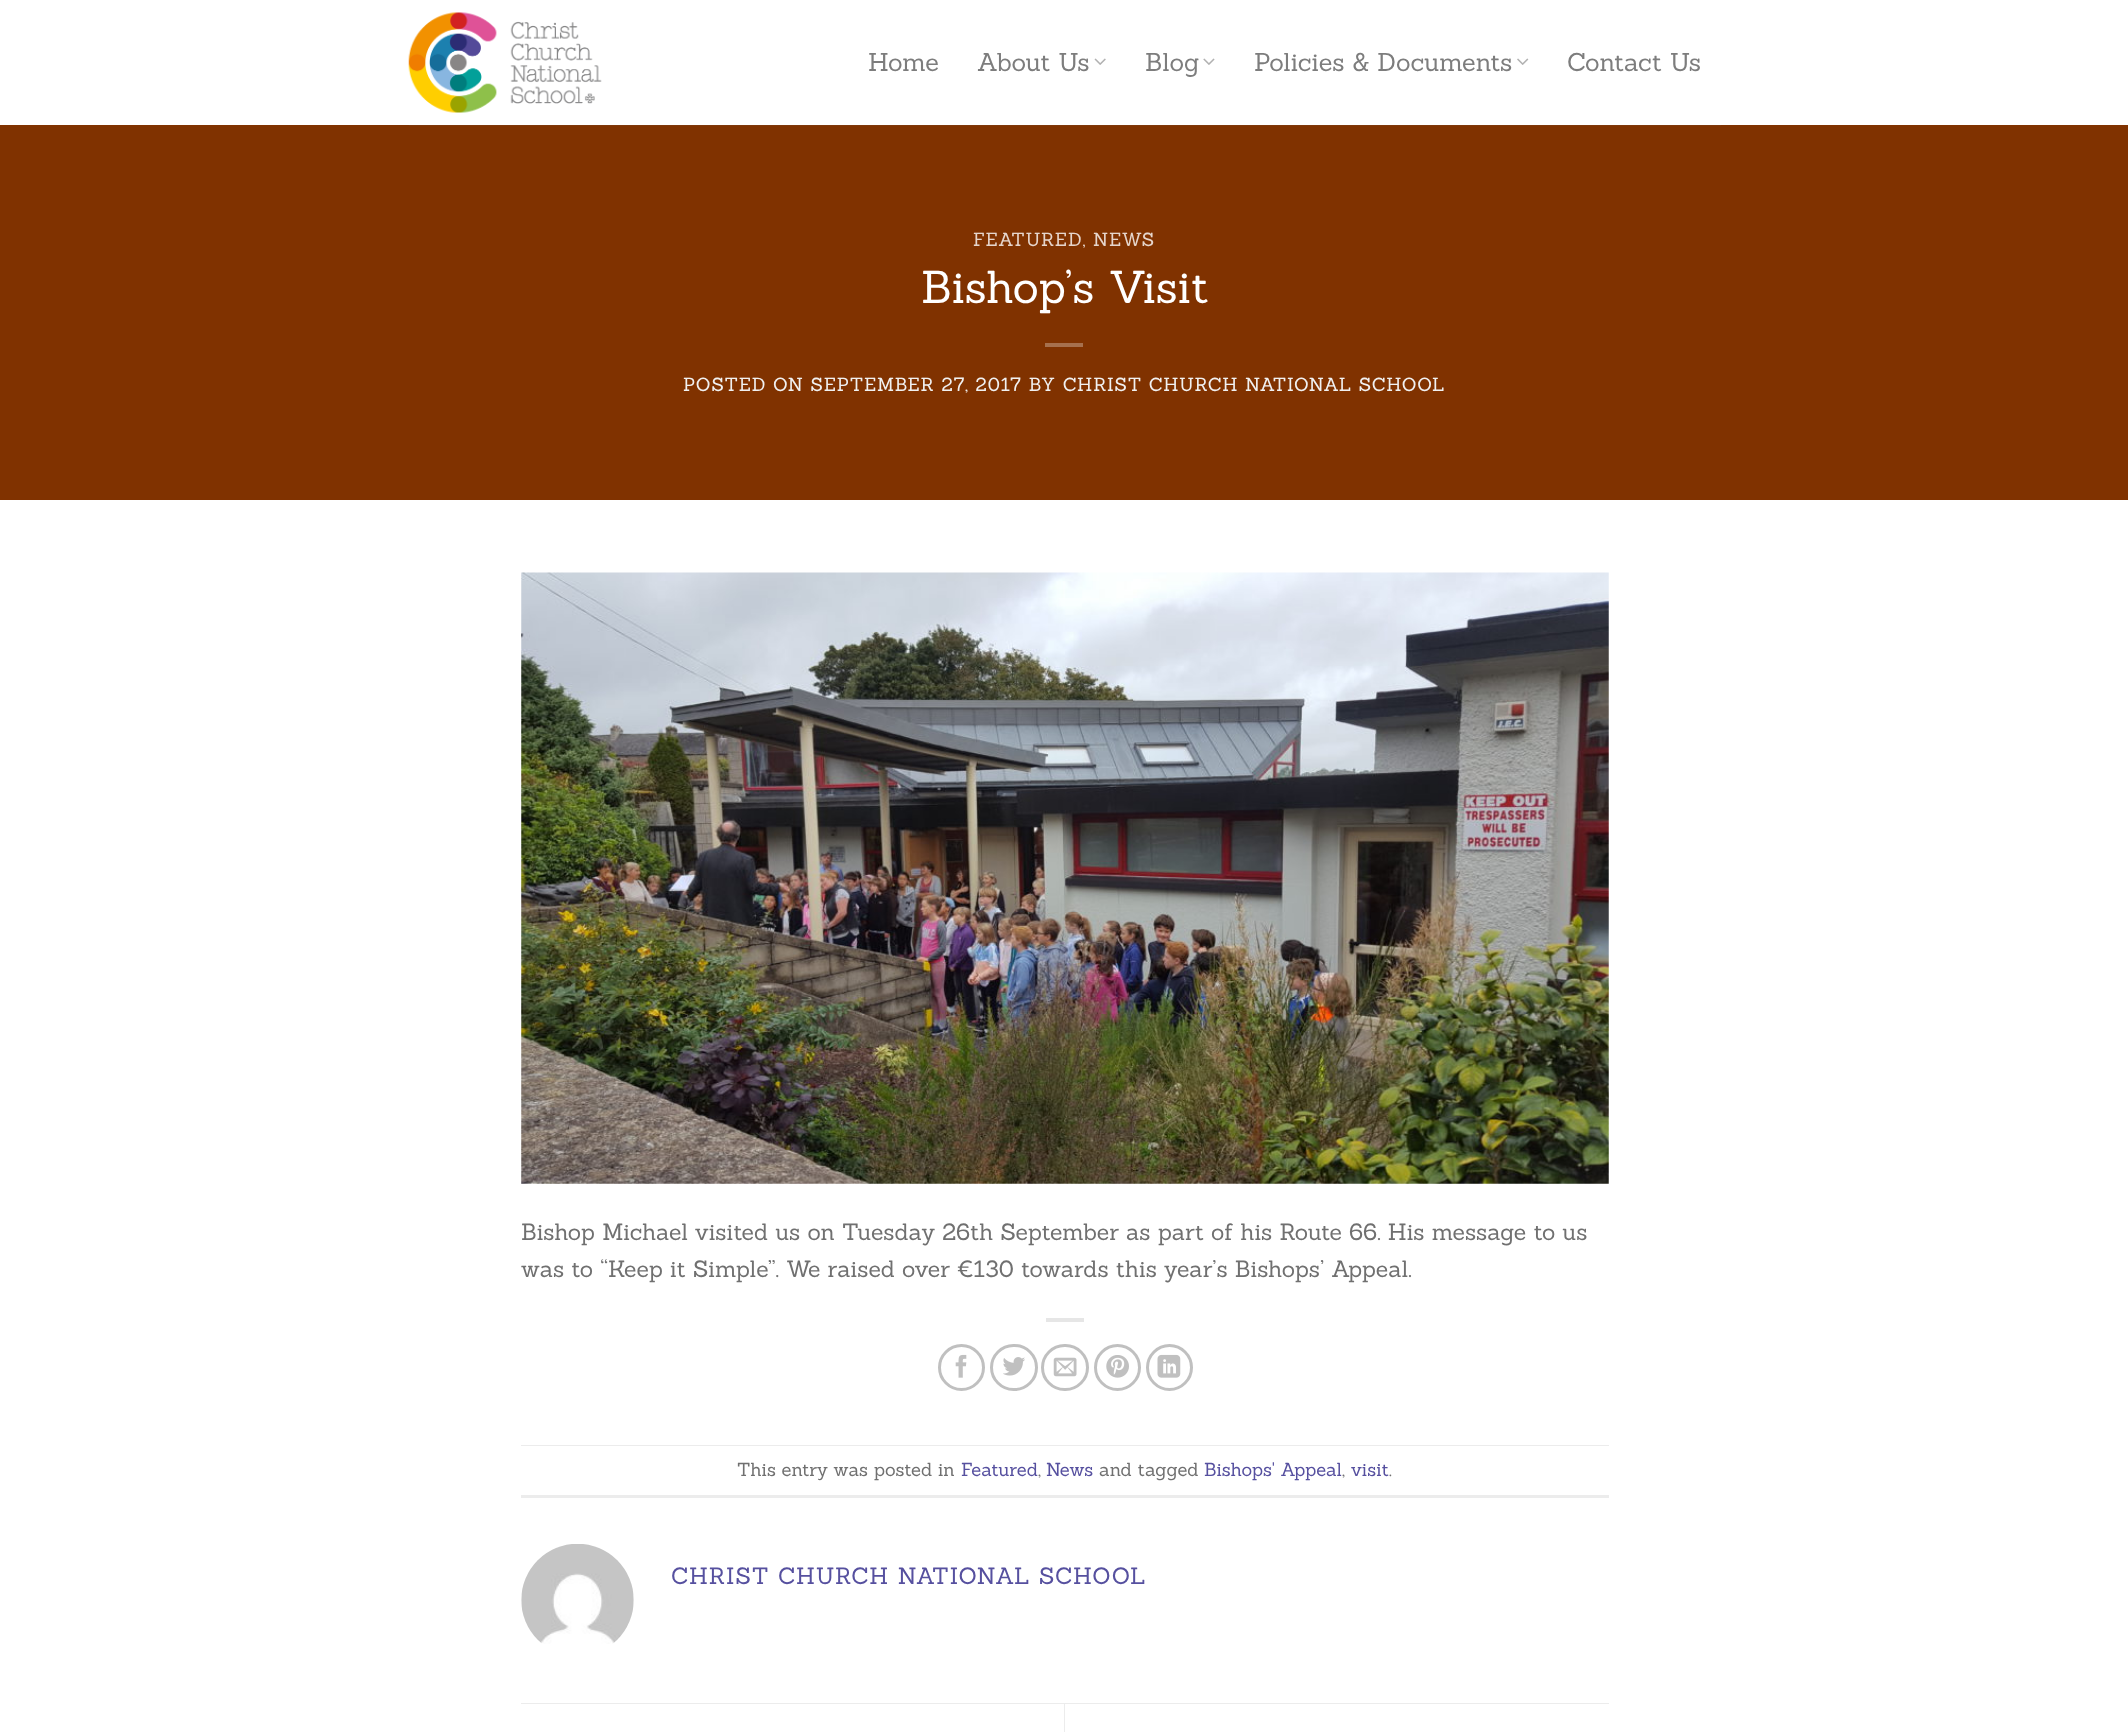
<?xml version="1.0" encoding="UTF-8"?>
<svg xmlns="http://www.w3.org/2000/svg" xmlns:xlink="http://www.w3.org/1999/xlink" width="2128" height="1732">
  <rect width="100%" height="100%" fill="#ffffff" />
  <image x="408" y="12" width="194" height="101" xlink:href="image1.png" />
  <image x="1094" y="58" width="12" height="7" xlink:href="image2.png" />
  <image x="1203" y="58" width="12" height="7" xlink:href="image3.png" />
  <image x="1517" y="58" width="12" height="7" xlink:href="image4.png" />
  <rect y="125" width="2128" height="375" fill="#803200" />
  <rect x="409" y="125" width="1312" height="1" fill="#7e380b" />
  <rect x="1045" y="343" width="38" height="4" fill="#a6704d" />
  <image x="521" y="572" width="1088" height="612" xlink:href="image5.png" />
  <rect x="1046" y="1318" width="38" height="4" fill="#e6e6e6" />
  <circle cx="961.5" cy="1367.5" r="22" fill="none" stroke="#c0c0c0" stroke-width="3" />
  <image x="955" y="1354" width="12" height="24" xlink:href="image6.png" />
  <rect x="991.5" y="1345.5" width="45" height="44" rx="22" fill="none" stroke="#c0c0c0" stroke-width="3" />
  <image x="1003" y="1357" width="22" height="19" xlink:href="image7.png" />
  <rect x="1042.5" y="1345.5" width="45" height="44" rx="22" fill="none" stroke="#c0c0c0" stroke-width="3" />
  <image x="1053" y="1357" width="24" height="20" xlink:href="image8.png" />
  <circle cx="1117.5" cy="1367.5" r="22" fill="none" stroke="#c0c0c0" stroke-width="3" />
  <image x="1106" y="1355" width="23" height="23" xlink:href="image9.png" />
  <circle cx="1169.5" cy="1367.5" r="22" fill="none" stroke="#c0c0c0" stroke-width="3" />
  <image x="1157" y="1354" width="24" height="24" xlink:href="image10.png" />
  <rect x="521" y="1445" width="1088" height="1" fill="#ececec" />
  <rect x="521" y="1495" width="1088" height="3" fill="#ececec" />
  <image x="521" y="1544" width="113" height="100" xlink:href="image11.png" />
  <rect x="521" y="1703" width="1088" height="1" fill="#ececec" />
  <rect x="1064" y="1704" width="1" height="28" fill="#ececec" />
  <text x="868" y="71" style="font-family: Sanchez; font-size: 25.25px; fill: #7d7d7d">Home</text>
  <text x="977" y="71" style="font-family: Sanchez; font-size: 25.25px; fill: #7d7d7d">About Us</text>
  <text x="1145" y="71" style="font-family: Sanchez; font-size: 25.25px; fill: #7d7d7d">Blog</text>
  <text x="1254" y="71" style="font-family: Sanchez; font-size: 25.25px; fill: #7d7d7d">Policies &amp; Documents</text>
  <text x="1567" y="71" style="font-family: Sanchez; font-size: 25.25px; fill: #7d7d7d">Contact Us</text>
  <text x="973" y="246" style="font-family: Sanchez; font-size: 18.5px; letter-spacing: 0.93px; fill: #e6d6cc">FEATURED, NEWS</text>
  <text x="921" y="303" style="font-family: Sanchez; font-size: 45px; fill: #ffffff">Bishop’s Visit</text>
  <text x="683" y="391" style="font-family: Sanchez; font-size: 18.5px; letter-spacing: 0.93px; fill: #f1f1f1">POSTED ON SEPTEMBER 27, 2017 BY CHRIST CHURCH NATIONAL SCHOOL</text>
  <text x="521" y="1240" style="font-family: Sanchez; font-size: 23px; fill: #707070">Bishop Michael visited us on Tuesday 26th September as part of his Route 66. His message to us</text>
  <text x="521" y="1277" style="font-family: Sanchez; font-size: 23px; fill: #707070">was to “Keep it Simple”. We raised over €130 towards this year’s Bishops’ Appeal.</text>
  <text x="737" y="1476" style="font-family: Sanchez; font-size: 18.4px; fill: #707070">This entry was posted in</text>
  <text x="961" y="1476" style="font-family: Sanchez; font-size: 18.4px; fill: #56509f">Featured</text>
  <text x="1038" y="1476" style="font-family: Sanchez; font-size: 18.4px; fill: #707070">,</text>
  <text x="1046" y="1476" style="font-family: Sanchez; font-size: 18.4px; fill: #56509f">News</text>
  <text x="1099" y="1476" style="font-family: Sanchez; font-size: 18.4px; fill: #707070">and tagged</text>
  <text x="1204" y="1476" style="font-family: Sanchez; font-size: 18.4px; fill: #56509f">Bishops' Appeal</text>
  <text x="1342" y="1476" style="font-family: Sanchez; font-size: 18.4px; fill: #707070">,</text>
  <text x="1351" y="1476" style="font-family: Sanchez; font-size: 18.4px; fill: #56509f">visit</text>
  <text x="1389" y="1476" style="font-family: Sanchez; font-size: 18.4px; fill: #707070">.</text>
  <text x="671" y="1584" style="font-family: Sanchez; font-size: 23px; letter-spacing: 1.15px; fill: #56509f">CHRIST CHURCH NATIONAL SCHOOL</text>
</svg>
